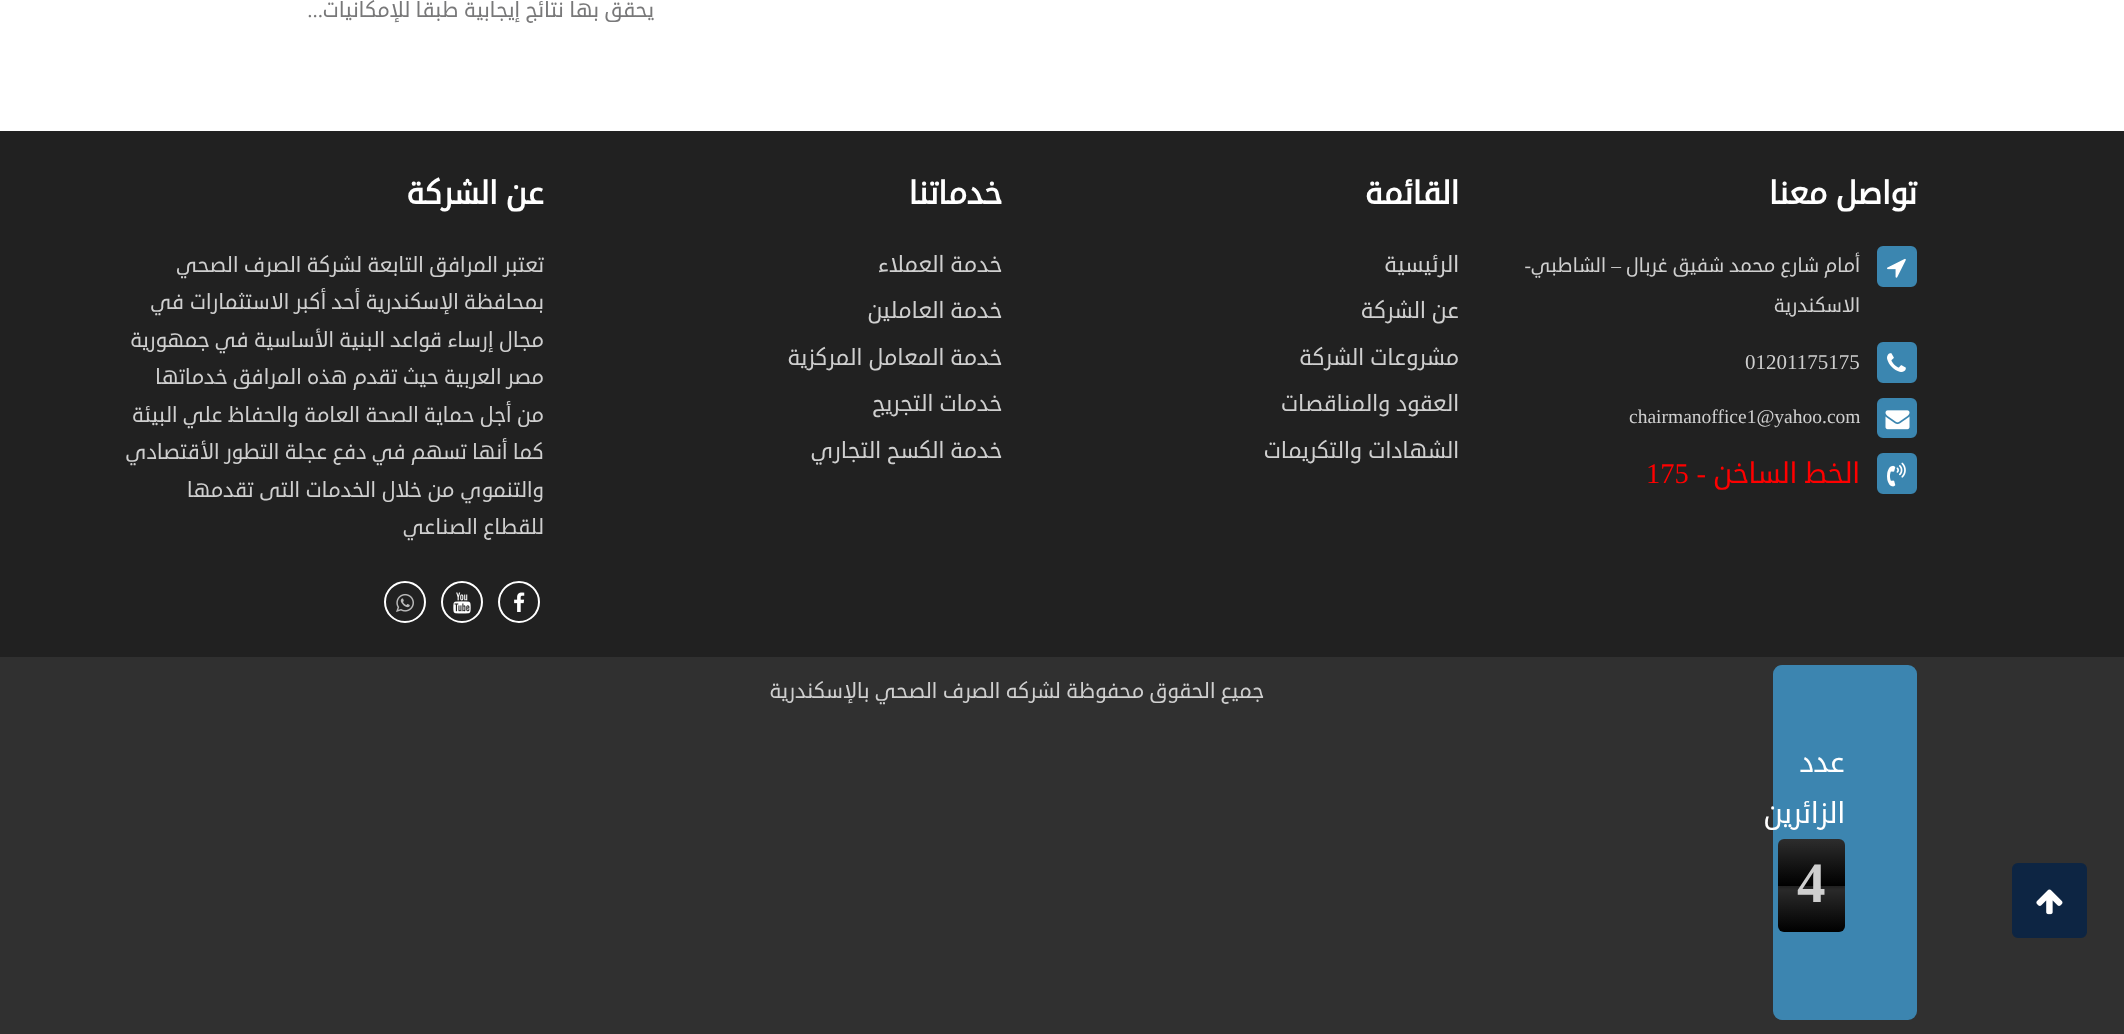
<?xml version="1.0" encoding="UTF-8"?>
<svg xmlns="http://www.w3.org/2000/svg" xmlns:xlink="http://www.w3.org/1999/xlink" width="2124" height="1034">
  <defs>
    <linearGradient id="g1" gradientUnits="userSpaceOnUse" x1="1811" y1="839" x2="1811" y2="932"><stop offset="0" stop-color="#2d2d2d" /><stop offset="0.5" stop-color="#000000" /><stop offset="0.51" stop-color="#2d2d2d" /><stop offset="1" stop-color="#000000" /></linearGradient>
    <clipPath id="clip1"><rect x="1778" y="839" width="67" height="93" rx="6" /></clipPath>
    <clipPath id="clip2"><rect x="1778" y="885" width="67" height="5" /></clipPath>
  </defs>
  <rect width="100%" height="100%" fill="#ffffff" />
  <rect y="657" width="2124" height="377" fill="#303030" />
  <rect x="2013" y="864" width="73" height="73" rx="5" fill="#0d2543" stroke="#0d2543" stroke-width="2" />
  <image x="2036" y="889" width="27" height="26" xlink:href="image1.png" />
  <rect y="131" width="2124" height="526" fill="#212121" />
  <rect x="1878" y="247" width="38" height="39" rx="5" fill="#3b86b0" stroke="#3b86b0" stroke-width="2" />
  <image x="1887" y="258" width="19" height="20" xlink:href="image2.png" />
  <rect x="1878" y="343" width="38" height="39" rx="5" fill="#3b86b0" stroke="#3b86b0" stroke-width="2" />
  <image x="1887" y="353" width="19" height="19" xlink:href="image3.png" />
  <rect x="1878" y="399" width="38" height="38" rx="5" fill="#3b86b0" stroke="#3b86b0" stroke-width="2" />
  <image x="1885" y="410" width="25" height="20" xlink:href="image4.png" />
  <rect x="1878" y="454" width="38" height="39" rx="5" fill="#3b86b0" stroke="#3b86b0" stroke-width="2" />
  <image x="1887" y="462" width="19" height="25" xlink:href="image5.png" />
  <circle cx="519" cy="602" r="20" fill="none" stroke="#ffffff" stroke-width="2" />
  <image x="514" y="592" width="11" height="20" xlink:href="image6.png" />
  <circle cx="462" cy="602" r="20" fill="none" stroke="#ffffff" stroke-width="2" />
  <image x="453" y="592" width="18" height="22" xlink:href="image7.png" />
  <circle cx="405" cy="602" r="20" fill="none" stroke="#ffffff" stroke-width="2" />
  <image x="396" y="593" width="18" height="19" xlink:href="image8.png" />
  <rect x="1773" y="665" width="144" height="355" rx="9" fill="#3c85b0" />
  <rect x="1778" y="839" width="67" height="93" rx="6" fill="url(#g1)" />
  <g clip-path="url(#clip1)">
    <g clip-path="url(#clip2)">
      <rect x="1778" y="842" width="67" height="46" fill="#000000" fill-opacity="0.3" filter="blur(1.5px)" />
    </g>
  </g>
  <text x="654" y="17" style="font-family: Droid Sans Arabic; font-size: 21px; direction: rtl; fill: #787879">يحقق بها نتائج إيجابية طبقاً للإمكانيات</text>
  <text x="323" y="17" style="font-family: Liberation Serif; font-size: 21px; direction: rtl; fill: #787879">...</text>
  <text x="1917" y="204" style="font-family: Droid Sans Arabic; font-size: 31.5px; font-weight: bold; direction: rtl; fill: #ffffff">تواصل معنا</text>
  <text x="1860" y="272" style="font-family: Droid Sans Arabic; font-size: 19.5px; direction: rtl; fill: #cfcfcf">أمام شارع محمد شفيق غربال</text>
  <text x="1621" y="272" style="font-family: Liberation Serif; font-size: 19.5px; direction: rtl; fill: #cfcfcf">–</text>
  <text x="1606" y="272" style="font-family: Droid Sans Arabic; font-size: 19.5px; direction: rtl; fill: #cfcfcf">الشاطبي</text>
  <text x="1531" y="272" style="font-family: Liberation Serif; font-size: 19.5px; direction: rtl; fill: #cfcfcf">-</text>
  <text x="1860" y="312" style="font-family: Droid Sans Arabic; font-size: 19.5px; direction: rtl; fill: #cfcfcf">الاسكندرية</text>
  <text x="1745" y="369" style="font-family: Liberation Serif; font-size: 21px; fill: #cfcfcf">01201175175</text>
  <text x="1629" y="423" style="font-family: Liberation Serif; font-size: 19.5px; fill: #cfcfcf">chairmanoffice1@yahoo.com</text>
  <text x="1860" y="483" style="font-family: Droid Sans Arabic; font-size: 28.5px; direction: rtl; fill: #ff0000">الخط الساخن</text>
  <text x="1706" y="483" style="font-family: Liberation Serif; font-size: 28.5px; direction: rtl; fill: #ff0000">-</text>
  <text x="1646" y="483" style="font-family: Liberation Serif; font-size: 28.5px; fill: #ff0000">175</text>
  <text x="1459" y="204" style="font-family: Droid Sans Arabic; font-size: 31.5px; font-weight: bold; direction: rtl; fill: #ffffff">القائمة</text>
  <text x="1459" y="272" style="font-family: Droid Sans Arabic; font-size: 22.5px; direction: rtl; fill: #cfcfcf">الرئيسية</text>
  <text x="1459" y="318" style="font-family: Droid Sans Arabic; font-size: 22.5px; direction: rtl; fill: #cfcfcf">عن الشركة</text>
  <text x="1459" y="365" style="font-family: Droid Sans Arabic; font-size: 22.5px; direction: rtl; fill: #cfcfcf">مشروعات الشركة</text>
  <text x="1459" y="411" style="font-family: Droid Sans Arabic; font-size: 22.5px; direction: rtl; fill: #cfcfcf">العقود والمناقصات</text>
  <text x="1459" y="458" style="font-family: Droid Sans Arabic; font-size: 22.5px; direction: rtl; fill: #cfcfcf">الشهادات والتكريمات</text>
  <text x="1002" y="204" style="font-family: Droid Sans Arabic; font-size: 31.5px; font-weight: bold; direction: rtl; fill: #ffffff">خدماتنا</text>
  <text x="1002" y="272" style="font-family: Droid Sans Arabic; font-size: 22.5px; direction: rtl; fill: #cfcfcf">خدمة العملاء</text>
  <text x="1002" y="318" style="font-family: Droid Sans Arabic; font-size: 22.5px; direction: rtl; fill: #cfcfcf">خدمة العاملين</text>
  <text x="1002" y="365" style="font-family: Droid Sans Arabic; font-size: 22.5px; direction: rtl; fill: #cfcfcf">خدمة المعامل المركزية</text>
  <text x="1002" y="411" style="font-family: Droid Sans Arabic; font-size: 22.5px; direction: rtl; fill: #cfcfcf">خدمات التجريج</text>
  <text x="1002" y="458" style="font-family: Droid Sans Arabic; font-size: 22.5px; direction: rtl; fill: #cfcfcf">خدمة الكسح التجاري</text>
  <text x="544" y="204" style="font-family: Droid Sans Arabic; font-size: 31.5px; font-weight: bold; direction: rtl; fill: #ffffff">عن الشركة</text>
  <text x="544" y="272" style="font-family: Droid Sans Arabic; font-size: 21px; direction: rtl; fill: #cfcfcf">تعتبر المرافق التابعة لشركة الصرف الصحي</text>
  <text x="544" y="309" style="font-family: Droid Sans Arabic; font-size: 21px; direction: rtl; fill: #cfcfcf">بمحافظة الإسكندرية أحد أكبر الاستثمارات في</text>
  <text x="544" y="347" style="font-family: Droid Sans Arabic; font-size: 21px; direction: rtl; fill: #cfcfcf">مجال إرساء قواعد البنية الأساسية في جمهورية</text>
  <text x="544" y="384" style="font-family: Droid Sans Arabic; font-size: 21px; direction: rtl; fill: #cfcfcf">مصر العربية حيث تقدم هذه المرافق خدماتها</text>
  <text x="544" y="422" style="font-family: Droid Sans Arabic; font-size: 21px; direction: rtl; fill: #cfcfcf">من أجل حماية الصحة العامة والحفاظ علي البيئة</text>
  <text x="544" y="459" style="font-family: Droid Sans Arabic; font-size: 21px; direction: rtl; fill: #cfcfcf">كما أنها تسهم في دفع عجلة التطور الأقتصادي</text>
  <text x="544" y="497" style="font-family: Droid Sans Arabic; font-size: 21px; direction: rtl; fill: #cfcfcf">والتنموي من خلال الخدمات التى تقدمها</text>
  <text x="544" y="534" style="font-family: Droid Sans Arabic; font-size: 21px; direction: rtl; fill: #cfcfcf">للقطاع الصناعي</text>
  <text x="1264" y="698" style="font-family: Droid Sans Arabic; font-size: 21px; direction: rtl; fill: #cfcfcf">جميع الحقوق محفوظة لشركه الصرف الصحي بالإسكندرية</text>
  <text x="1845" y="772" style="font-family: Droid Sans Arabic; font-size: 29px; direction: rtl; fill: #ffffff">عدد</text>
  <text x="1845" y="823" style="font-family: Droid Sans Arabic; font-size: 29px; direction: rtl; fill: #ffffff">الزائرين</text>
  <text x="1797" y="902" style="font-family: Liberation Serif; font-size: 57px; font-weight: bold; fill: #cfcfcf">4</text>
</svg>
